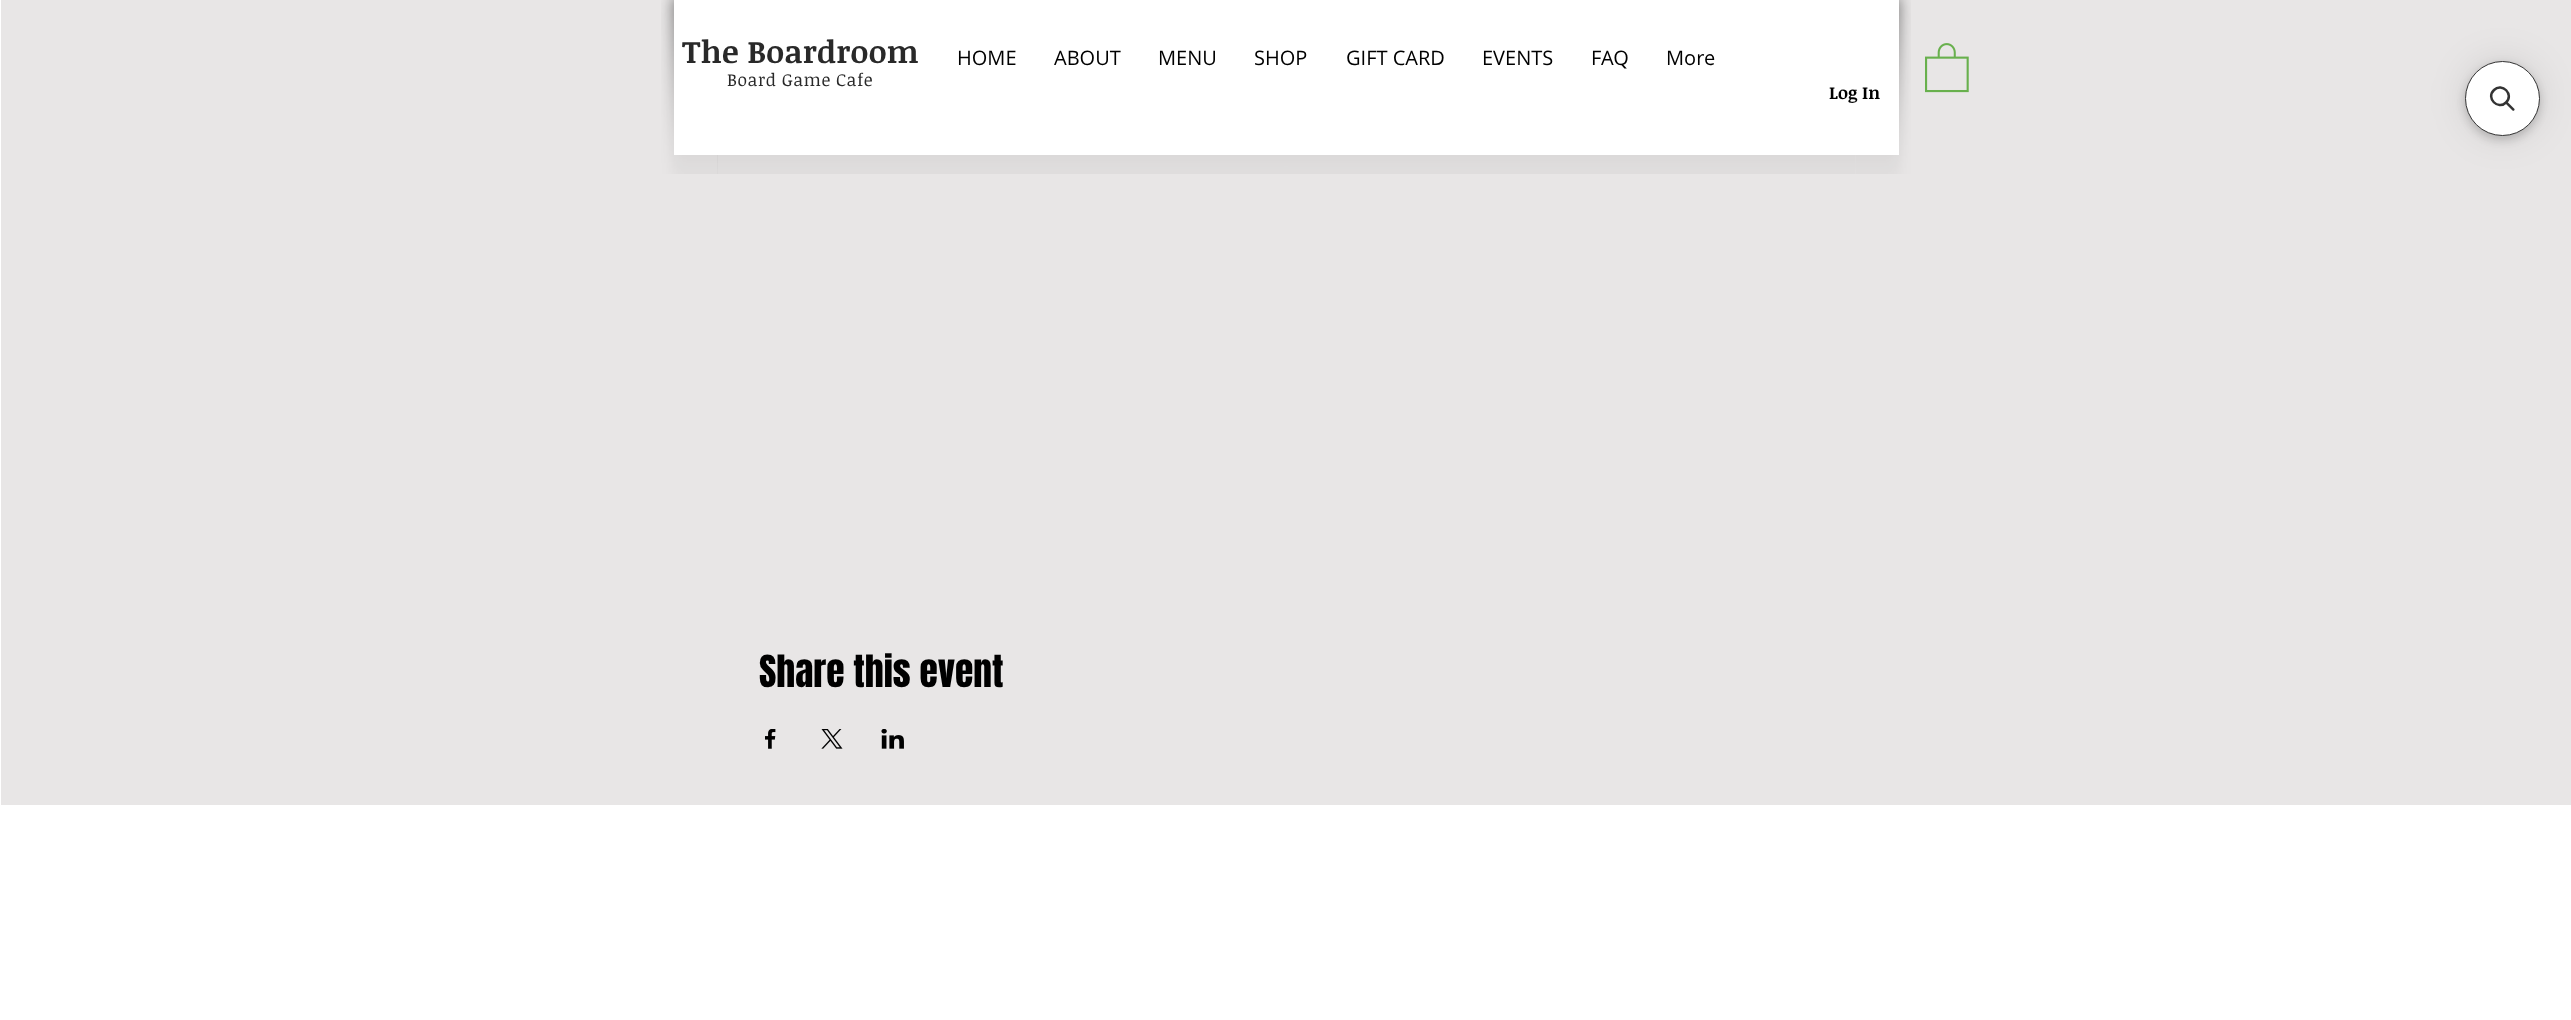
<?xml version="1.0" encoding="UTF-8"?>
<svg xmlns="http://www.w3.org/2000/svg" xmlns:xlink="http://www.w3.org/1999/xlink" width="2571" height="1020">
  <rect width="100%" height="100%" fill="#ffffff" />
  <rect x="1" width="2570" height="805" fill="#e8e6e6" />
  <image x="661" y="0" width="57" height="174" xlink:href="image1.png" />
  <image x="1855" y="0" width="56" height="174" xlink:href="image3.png" />
  <rect x="674" width="1225" height="155" fill="#ffffff" />
  <image x="717" y="155" width="1138" height="19" xlink:href="image2.png" />
  <image x="1925" y="43" width="44" height="50" xlink:href="image4.png" />
  <image x="765" y="729" width="11" height="20" xlink:href="image5.png" />
  <image x="821" y="729" width="22" height="20" xlink:href="image6.png" />
  <image x="881" y="729" width="23" height="20" xlink:href="image7.png" />
  <rect x="2465" y="66" width="75" height="75" rx="37.5" fill="#000000" fill-opacity="0.05" filter="blur(5px)" />
  <rect x="2465" y="64" width="75" height="75" rx="37.5" fill="#000000" fill-opacity="0.15" filter="blur(5px)" />
  <rect x="2465" y="61" width="75" height="75" rx="37.5" fill="#000000" fill-opacity="0.1" filter="blur(19px)" />
  <circle cx="2502.5" cy="98.5" r="37" fill="#ffffff" stroke="#333333" />
  <path d="M 2494 90 c 8 -8 20.5 4.5 12 12.5 c -8 8 -20.5 -4.5 -12 -12.5 z" fill="none" stroke="#333333" stroke-width="2.5" />
  <path d="M 2505.5 103.5 l 1.5 -2 l 7.5 7.5 c 0.5 1 -1 2.5 -2 1.5 z" fill="#333333" />
  <text x="682" y="63" style="font-family: Noticia Text; font-size: 31.25px; font-weight: bold; letter-spacing: 0.25px; fill: #292929">The Boardroom</text>
  <text x="957" y="65" style="font-family: Open Sans; font-size: 20px; fill: #000000">HOME</text>
  <text x="1054" y="65" style="font-family: Open Sans; font-size: 20px; fill: #000000">ABOUT</text>
  <text x="1158" y="65" style="font-family: Open Sans; font-size: 20px; fill: #000000">MENU</text>
  <text x="1254" y="65" style="font-family: Open Sans; font-size: 20px; fill: #000000">SHOP</text>
  <text x="1346" y="65" style="font-family: Open Sans; font-size: 20px; fill: #000000">GIFT CARD</text>
  <text x="1482" y="65" style="font-family: Open Sans; font-size: 20px; fill: #000000">EVENTS</text>
  <text x="1591" y="65" style="font-family: Open Sans; font-size: 20px; fill: #000000">FAQ</text>
  <text x="1666" y="65" style="font-family: Open Sans; font-size: 20px; fill: #000000">More</text>
  <text x="727" y="86" style="font-family: Noticia Text; font-size: 17.5px; letter-spacing: 0.5px; fill: #292929">Board Game Cafe</text>
  <text x="1829" y="99" style="font-family: Noticia Text; font-size: 17.5px; font-weight: bold; fill: #000000">Log In</text>
  <text x="759" y="687" style="font-family: Anton; font-size: 37.5px; fill: #000000">Share this event</text>
</svg>
